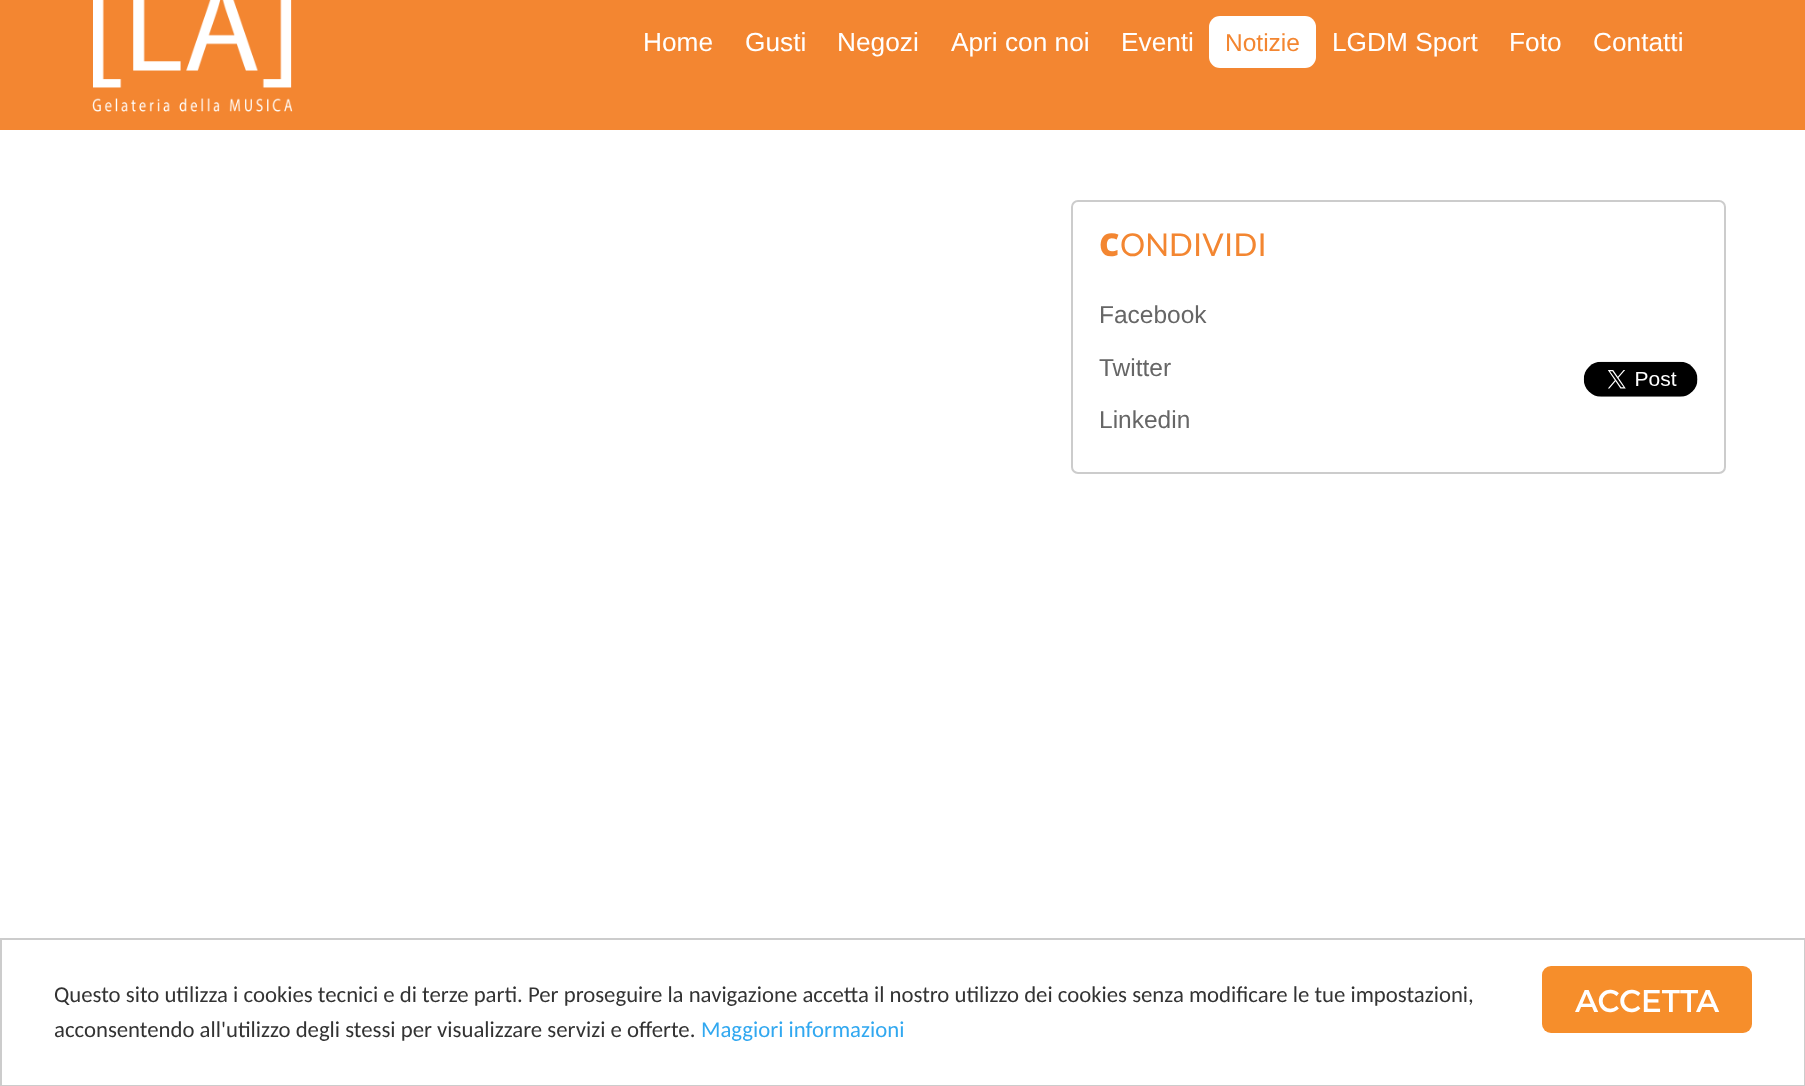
<?xml version="1.0" encoding="UTF-8"?>
<svg xmlns="http://www.w3.org/2000/svg" xmlns:xlink="http://www.w3.org/1999/xlink" width="1805" height="1086">
  <rect width="100%" height="100%" fill="#ffffff" />
  <rect width="1805" height="130" fill="#f38631" />
  <image x="92" y="0" width="201" height="112" xlink:href="image1.png" />
  <rect x="1209" y="16" width="107" height="52" rx="11" fill="#ffffff" />
  <rect x="1072" y="201" width="653" height="272" rx="6" fill="none" stroke="#cccccc" stroke-width="2" />
  <image x="1583" y="361" width="115" height="36" xlink:href="image2.png" />
  <rect x="1" y="939" width="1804" height="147" fill="none" stroke="#cccccc" stroke-width="2" />
  <rect x="1542" y="966" width="210" height="67" rx="9" fill="#f68e2b" />
  <text x="643" y="51" style="font-family: Liberation Sans; font-size: 26.25px; fill: #ffffff">Home</text>
  <text x="745" y="51" style="font-family: Liberation Sans; font-size: 26.25px; fill: #ffffff">Gusti</text>
  <text x="837" y="51" style="font-family: Liberation Sans; font-size: 26.25px; fill: #ffffff">Negozi</text>
  <text x="951" y="51" style="font-family: Liberation Sans; font-size: 26.25px; fill: #ffffff">Apri con noi</text>
  <text x="1121" y="51" style="font-family: Liberation Sans; font-size: 26.25px; fill: #ffffff">Eventi</text>
  <text x="1225" y="51" style="font-family: Liberation Sans; font-size: 24.5px; fill: #f38631">Notizie</text>
  <text x="1332" y="51" style="font-family: Liberation Sans; font-size: 26.25px; fill: #ffffff">LGDM Sport</text>
  <text x="1509" y="51" style="font-family: Liberation Sans; font-size: 26.25px; fill: #ffffff">Foto</text>
  <text x="1593" y="51" style="font-family: Liberation Sans; font-size: 26.25px; fill: #ffffff">Contatti</text>
  <text x="1099" y="256" style="font-family: Noto Sans; font-size: 31.5px; font-weight: 900; fill: #f38631">C</text>
  <text x="1120" y="256" style="font-family: Lato; font-size: 31.5px; fill: #f38631">ONDIVIDI</text>
  <text x="1099" y="323" style="font-family: Liberation Sans; font-size: 24.5px; fill: #666666">Facebook</text>
  <text x="1099" y="376" style="font-family: Liberation Sans; font-size: 24.5px; fill: #666666">Twitter</text>
  <text x="1099" y="428" style="font-family: Liberation Sans; font-size: 24.5px; fill: #666666">Linkedin</text>
  <text x="54" y="1002" style="font-family: Carlito; font-size: 22.75px; fill: #333333">Questo sito utilizza i cookies tecnici e di terze parti. Per proseguire la navigazione accetta il nostro utilizzo dei cookies senza modificare le tue impostazioni,</text>
  <text x="54" y="1037" style="font-family: Carlito; font-size: 22.75px; fill: #333333">acconsentendo all'utilizzo degli stessi per visualizzare servizi e offerte.</text>
  <text x="701" y="1037" style="font-family: Carlito; font-size: 22.75px; fill: #31a8f0">Maggiori informazioni</text>
  <text x="1575" y="1012" style="font-family: Montserrat; font-size: 31.5px; fill: #ffffff">ACCETTA</text>
</svg>
